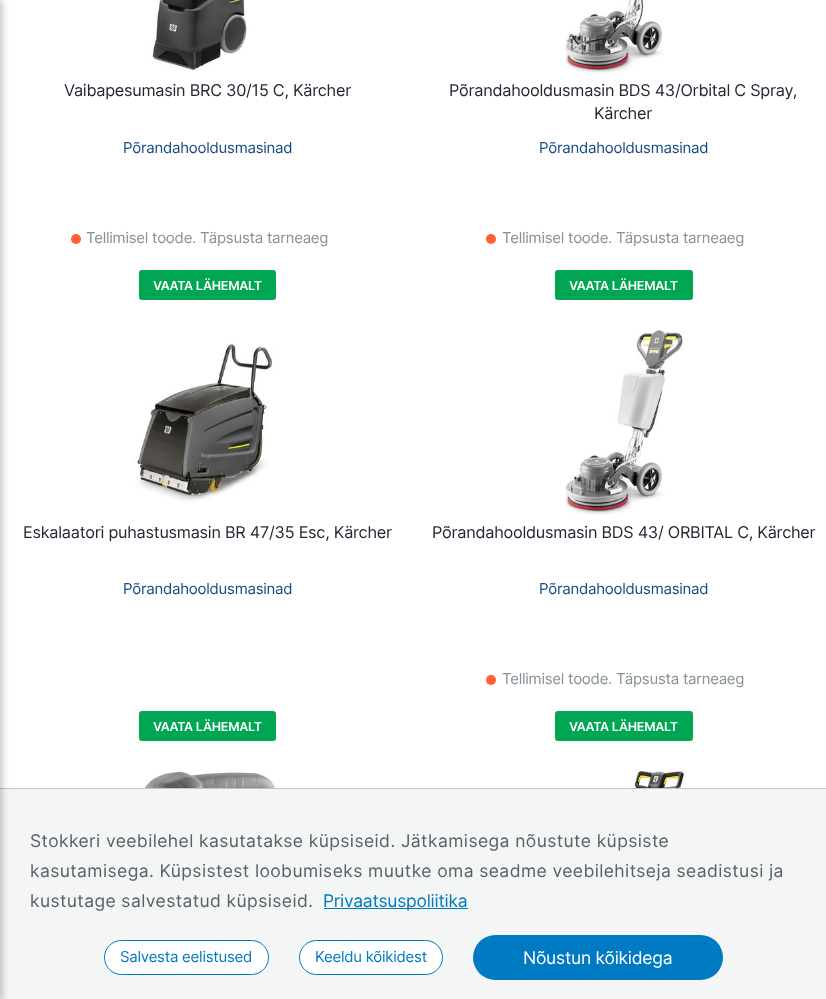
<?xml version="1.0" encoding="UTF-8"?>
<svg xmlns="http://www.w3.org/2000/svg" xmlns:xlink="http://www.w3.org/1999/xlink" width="826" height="999">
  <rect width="100%" height="100%" fill="#ffffff" />
  <rect y="789" width="826" height="210" fill="#f4f6f6" />
  <rect y="788" width="826" height="1" fill="#c3c5c5" />
  <rect x="-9" width="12" height="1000" fill="#000000" fill-opacity="0.2" filter="blur(3px)" />
  <image x="150" y="0" width="99" height="71" xlink:href="image1.png" />
  <circle cx="76" cy="239" r="5" fill="#ff6035" />
  <rect x="139.5" y="270.5" width="136" height="29" rx="2" fill="#00a651" stroke="#00a651" />
  <image x="565" y="0" width="99" height="74" xlink:href="image2.png" />
  <circle cx="491" cy="239" r="5" fill="#ff6035" />
  <rect x="555.5" y="270.5" width="137" height="29" rx="2" fill="#00a651" stroke="#00a651" />
  <image x="134" y="342" width="139" height="160" xlink:href="image3.png" />
  <rect x="139.5" y="711.5" width="136" height="29" rx="2" fill="#00a651" stroke="#00a651" />
  <image x="565" y="330" width="119" height="185" xlink:href="image4.png" />
  <circle cx="491" cy="680" r="5" fill="#ff6035" />
  <rect x="555.5" y="711.5" width="137" height="29" rx="2" fill="#00a651" stroke="#00a651" />
  <image x="122" y="771" width="173" height="17" xlink:href="image5.png" />
  <image x="556" y="768" width="128" height="20" xlink:href="image6.png" />
  <rect x="324" y="908" width="144" height="1" fill="#007ac2" />
  <rect x="104.5" y="940.5" width="164" height="34" rx="17" fill="#ffffff" stroke="#007ac2" />
  <rect x="299.5" y="940.5" width="143" height="34" rx="17" fill="#ffffff" stroke="#007ac2" />
  <rect x="473" y="935" width="250" height="45" rx="22.5" fill="#007ac2" />
  <text x="64" y="96" style="font-family: Inter; font-size: 16.25px; letter-spacing: -0.25px; fill: #262633">Vaibapesumasin BRC 30/15 C, Kärcher</text>
  <text x="123" y="153" style="font-family: Inter; font-size: 15px; letter-spacing: -0.25px; fill: #194a83">Põrandahooldusmasinad</text>
  <text x="86" y="243" style="font-family: Inter; font-size: 15px; letter-spacing: -0.25px; fill: #879197">Tellimisel toode. Täpsusta tarneaeg</text>
  <text x="153" y="290" style="font-family: Inter; font-size: 12.5px; font-weight: 600; letter-spacing: -0.25px; fill: #ffffff">VAATA LÄHEMALT</text>
  <text x="449" y="96" style="font-family: Inter; font-size: 16.25px; letter-spacing: -0.25px; fill: #262633">Põrandahooldusmasin BDS 43/Orbital C Spray,</text>
  <text x="594" y="119" style="font-family: Inter; font-size: 16.25px; letter-spacing: -0.25px; fill: #262633">Kärcher</text>
  <text x="539" y="153" style="font-family: Inter; font-size: 15px; letter-spacing: -0.25px; fill: #194a83">Põrandahooldusmasinad</text>
  <text x="502" y="243" style="font-family: Inter; font-size: 15px; letter-spacing: -0.25px; fill: #879197">Tellimisel toode. Täpsusta tarneaeg</text>
  <text x="569" y="290" style="font-family: Inter; font-size: 12.5px; font-weight: 600; letter-spacing: -0.25px; fill: #ffffff">VAATA LÄHEMALT</text>
  <text x="23" y="538" style="font-family: Inter; font-size: 16.25px; letter-spacing: -0.25px; fill: #262633">Eskalaatori puhastusmasin BR 47/35 Esc, Kärcher</text>
  <text x="123" y="594" style="font-family: Inter; font-size: 15px; letter-spacing: -0.25px; fill: #194a83">Põrandahooldusmasinad</text>
  <text x="153" y="731" style="font-family: Inter; font-size: 12.5px; font-weight: 600; letter-spacing: -0.25px; fill: #ffffff">VAATA LÄHEMALT</text>
  <text x="432" y="538" style="font-family: Inter; font-size: 16.25px; letter-spacing: -0.25px; fill: #262633">Põrandahooldusmasin BDS 43/ ORBITAL C, Kärcher</text>
  <text x="539" y="594" style="font-family: Inter; font-size: 15px; letter-spacing: -0.25px; fill: #194a83">Põrandahooldusmasinad</text>
  <text x="502" y="684" style="font-family: Inter; font-size: 15px; letter-spacing: -0.25px; fill: #879197">Tellimisel toode. Täpsusta tarneaeg</text>
  <text x="569" y="731" style="font-family: Inter; font-size: 12.5px; font-weight: 600; letter-spacing: -0.25px; fill: #ffffff">VAATA LÄHEMALT</text>
  <text x="30" y="847" style="font-family: Inter; font-size: 17.5px; letter-spacing: 0.4px; fill: #566168">Stokkeri veebilehel kasutatakse küpsiseid. Jätkamisega nõustute küpsiste</text>
  <text x="30" y="877" style="font-family: Inter; font-size: 17.5px; letter-spacing: 0.4px; fill: #566168">kasutamisega. Küpsistest loobumiseks muutke oma seadme veebilehitseja seadistusi ja</text>
  <text x="30" y="907" style="font-family: Inter; font-size: 17.5px; letter-spacing: 0.4px; fill: #566168">kustutage salvestatud küpsiseid.</text>
  <text x="323" y="907" style="font-family: Inter; font-size: 17.5px; letter-spacing: -0.25px; fill: #007ac2">Privaatsuspoliitika</text>
  <text x="120" y="962" style="font-family: Inter; font-size: 15px; letter-spacing: -0.25px; fill: #007ac2">Salvesta eelistused</text>
  <text x="315" y="962" style="font-family: Inter; font-size: 15px; letter-spacing: -0.25px; fill: #007ac2">Keeldu kõikidest</text>
  <text x="523" y="964" style="font-family: Inter; font-size: 17.5px; letter-spacing: -0.25px; fill: #ffffff">Nõustun kõikidega</text>
</svg>
